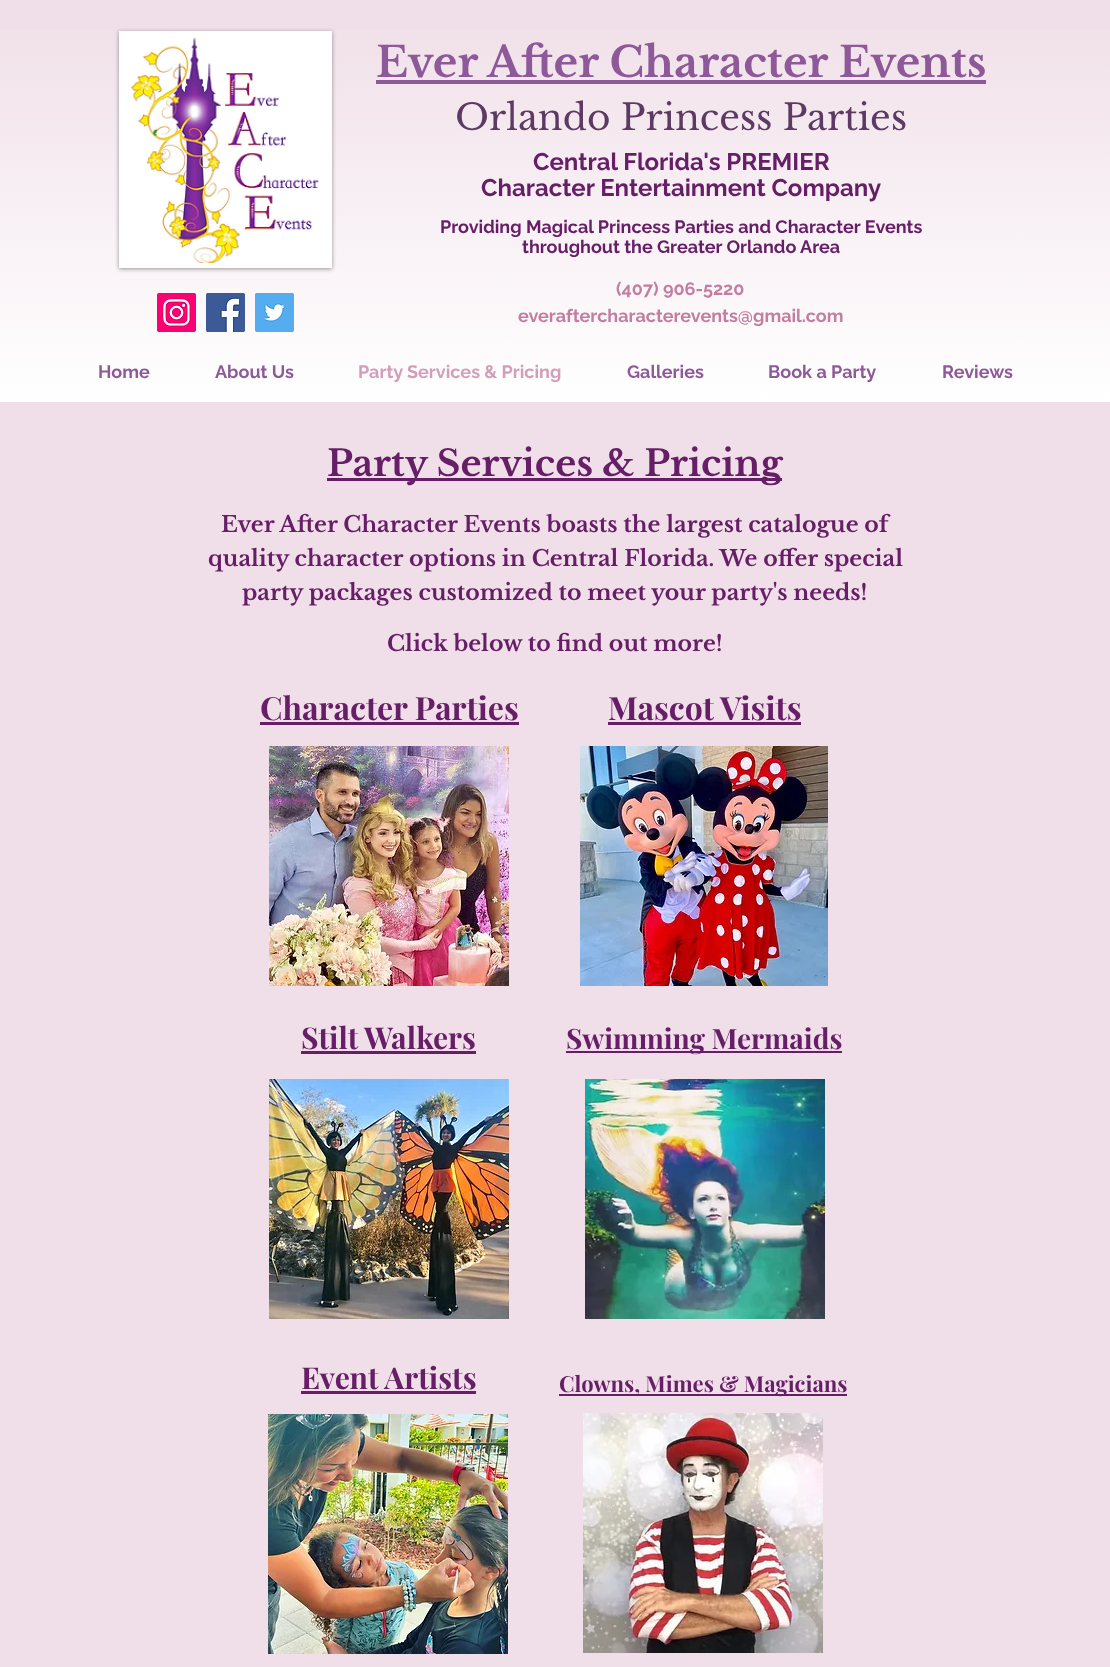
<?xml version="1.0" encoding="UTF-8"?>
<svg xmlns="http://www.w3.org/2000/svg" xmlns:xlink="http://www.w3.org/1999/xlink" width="1110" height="1667">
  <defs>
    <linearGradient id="g1" gradientUnits="userSpaceOnUse" x1="555" y1="0" x2="555" y2="402"><stop offset="0" stop-color="#f0dfe8" /><stop offset="1" stop-color="#ffffff" /></linearGradient>
  </defs>
  <rect width="100%" height="100%" fill="#f0dfe8" />
  <rect y="31" width="1110" height="371" fill="url(#g1)" />
  <rect x="119" y="32" width="213" height="237" fill="#000000" fill-opacity="0.4" filter="blur(2px)" />
  <rect x="119" y="31" width="213" height="237" fill="#ffffff" />
  <image x="131" y="37" width="188" height="226" xlink:href="image1.png" />
  <rect x="376" y="80" width="610" height="4" fill="#8e5999" />
  <image x="157" y="293" width="39" height="39" xlink:href="image2.png" />
  <image x="206" y="293" width="39" height="39" xlink:href="image3.png" />
  <image x="255" y="293" width="39" height="39" xlink:href="image4.png" />
  <rect x="327" y="478" width="455" height="3" fill="#661e67" />
  <rect x="260" y="722" width="259" height="3" fill="#661e67" />
  <rect x="608" y="722" width="193" height="3" fill="#661e67" />
  <image x="269" y="746" width="240" height="240" xlink:href="image5.png" />
  <image x="580" y="746" width="248" height="240" xlink:href="image6.png" />
  <rect x="301" y="1051" width="175" height="3" fill="#661e67" />
  <rect x="566" y="1051" width="276" height="2" fill="#661e67" />
  <image x="269" y="1079" width="240" height="240" xlink:href="image7.png" />
  <image x="585" y="1079" width="240" height="240" xlink:href="image8.png" />
  <rect x="301" y="1391" width="175" height="3" fill="#661e67" />
  <image x="268" y="1414" width="240" height="240" xlink:href="image9.png" />
  <rect x="559" y="1394" width="288" height="2" fill="#661e67" />
  <image x="583" y="1413" width="240" height="240" xlink:href="image10.png" />
  <text x="376" y="77" style="font-family: Libre Baskerville; font-size: 42px; font-weight: bold; fill: #8e5999">Ever After Character Events</text>
  <text x="455" y="130" style="font-family: Libre Baskerville; font-size: 36px; fill: #5d3a64">Orlando Princess Parties</text>
  <text x="533" y="170" style="font-family: Raleway; font-size: 24px; font-weight: bold; fill: #661e67">Central Florida's PREMIER</text>
  <text x="481" y="196" style="font-family: Raleway; font-size: 24px; font-weight: bold; fill: #661e67">Character Entertainment Company</text>
  <text x="440" y="233" style="font-family: Raleway; font-size: 18px; font-weight: bold; fill: #661e67">Providing Magical Princess Parties and Character Events</text>
  <text x="522" y="253" style="font-family: Raleway; font-size: 18px; font-weight: bold; fill: #661e67">throughout the Greater Orlando Area</text>
  <text x="616" y="295" style="font-family: Raleway; font-size: 18px; font-weight: bold; fill: #c37da1">(407) 906-5220</text>
  <text x="518" y="322" style="font-family: Raleway; font-size: 18px; font-weight: bold; fill: #c37da1">everaftercharacterevents@gmail.com</text>
  <text x="98" y="378" style="font-family: Raleway; font-size: 18px; font-weight: bold; fill: #8e5999">Home</text>
  <text x="215" y="378" style="font-family: Raleway; font-size: 18px; font-weight: bold; fill: #8e5999">About Us</text>
  <text x="358" y="378" style="font-family: Raleway; font-size: 18px; font-weight: bold; fill: #d29eb9">Party Services &amp; Pricing</text>
  <text x="627" y="378" style="font-family: Raleway; font-size: 18px; font-weight: bold; fill: #8e5999">Galleries</text>
  <text x="768" y="378" style="font-family: Raleway; font-size: 18px; font-weight: bold; fill: #8e5999">Book a Party</text>
  <text x="942" y="378" style="font-family: Raleway; font-size: 18px; font-weight: bold; fill: #8e5999">Reviews</text>
  <text x="327" y="476" style="font-family: Libre Baskerville; font-size: 36px; font-weight: bold; fill: #661e67">Party Services &amp; Pricing</text>
  <text x="221" y="532" style="font-family: Libre Baskerville; font-size: 22px; font-weight: bold; fill: #661e67">Ever After Character Events boasts the largest catalogue of</text>
  <text x="208" y="566" style="font-family: Libre Baskerville; font-size: 22px; font-weight: bold; fill: #661e67">quality character options in Central Florida. We offer special</text>
  <text x="242" y="600" style="font-family: Libre Baskerville; font-size: 22px; font-weight: bold; fill: #661e67">party packages customized to meet your party's needs!</text>
  <text x="387" y="651" style="font-family: Libre Baskerville; font-size: 22px; font-weight: bold; fill: #661e67">Click below to find out more!</text>
  <text x="260" y="720" style="font-family: Playfair Display; font-size: 32px; font-weight: bold; fill: #661e67">Character Parties</text>
  <text x="608" y="720" style="font-family: Playfair Display; font-size: 32px; font-weight: bold; fill: #661e67">Mascot Visits</text>
  <text x="301" y="1049" style="font-family: Playfair Display; font-size: 30px; font-weight: bold; fill: #661e67">Stilt Walkers</text>
  <text x="566" y="1049" style="font-family: Playfair Display; font-size: 28px; font-weight: bold; fill: #661e67">Swimming Mermaids</text>
  <text x="301" y="1389" style="font-family: Playfair Display; font-size: 30px; font-weight: bold; fill: #661e67">Event Artists</text>
  <text x="559" y="1392" style="font-family: Playfair Display; font-size: 22px; font-weight: bold; fill: #661e67">Clowns, Mimes &amp; Magicians</text>
</svg>
